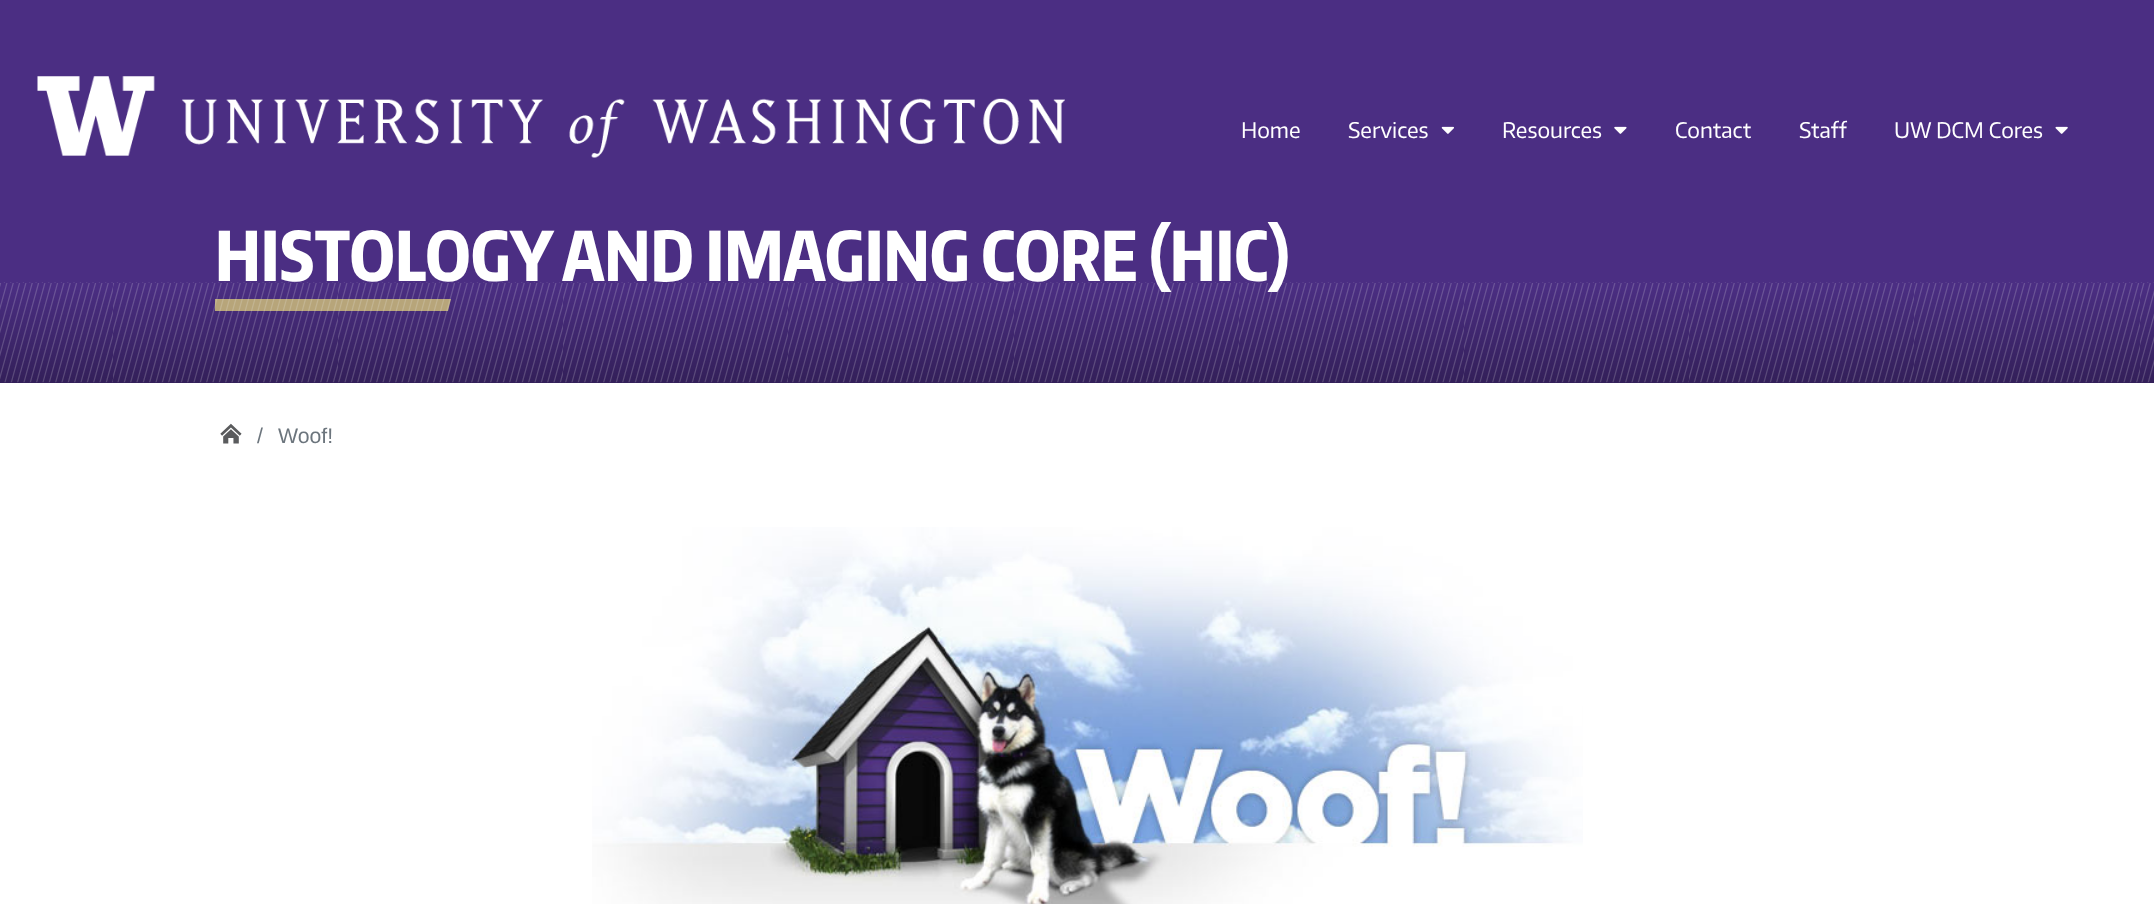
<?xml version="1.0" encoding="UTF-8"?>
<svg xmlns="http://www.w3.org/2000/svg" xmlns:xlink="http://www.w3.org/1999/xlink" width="2154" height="904">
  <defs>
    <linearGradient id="g1" gradientUnits="userSpaceOnUse" x1="0" y1="283" x2="0" y2="383"><stop offset="0" stop-color="#000000" stop-opacity="0" /><stop offset="1" stop-color="#000000" stop-opacity="0.32" /></linearGradient>
    <clipPath id="clip1"><rect x="215" y="299" width="1725" height="12" /></clipPath>
  </defs>
  <rect width="100%" height="100%" fill="#ffffff" />
  <rect width="2154" height="383" fill="#4b2e83" />
  <image x="37" y="76" width="1028" height="82" xlink:href="image1.png" />
  <image x="1441" y="126" width="13" height="8" xlink:href="image2.png" />
  <image x="1614" y="126" width="13" height="8" xlink:href="image3.png" />
  <image x="2055" y="126" width="13" height="8" xlink:href="image4.png" />
  <image x="220" y="423" width="22" height="21" xlink:href="image6.png" />
  <image x="592" y="527" width="991" height="377" xlink:href="image7.png" />
  <text x="1241" y="138" style="font-family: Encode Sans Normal; font-size: 21.25px; fill: #ffffff">Home</text>
  <text x="1348" y="138" style="font-family: Encode Sans Normal; font-size: 21.25px; fill: #ffffff">Services</text>
  <text x="1502" y="138" style="font-family: Encode Sans Normal; font-size: 21.25px; fill: #ffffff">Resources</text>
  <text x="1675" y="138" style="font-family: Encode Sans Normal; font-size: 21.25px; fill: #ffffff">Contact</text>
  <text x="1799" y="138" style="font-family: Encode Sans Normal; font-size: 21.25px; fill: #ffffff">Staff</text>
  <text x="1894" y="138" style="font-family: Encode Sans Normal; font-size: 21.25px; fill: #ffffff">UW DCM Cores</text>
  <text x="215" y="281" style="font-family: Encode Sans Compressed; font-size: 68px; font-weight: 800; fill: #ffffff">HISTOLOGY AND IMAGING CORE (HIC)</text>
  <rect y="290" width="2154" height="93" fill="url(#g1)" />
  <g clip-path="url(#clip1)">
    <path d="M 211 299 h 240 l -3 12 h -240 z" fill="#b7a57a" />
  </g>
  <image x="0" y="282" width="2154" height="101" xlink:href="image5.png" />
  <text x="257" y="443" style="font-family: Liberation Sans; font-size: 21.25px; fill: #6c757d">/</text>
  <text x="278" y="443" style="font-family: Liberation Sans; font-size: 21.25px; fill: #6c757d">Woof!</text>
</svg>
